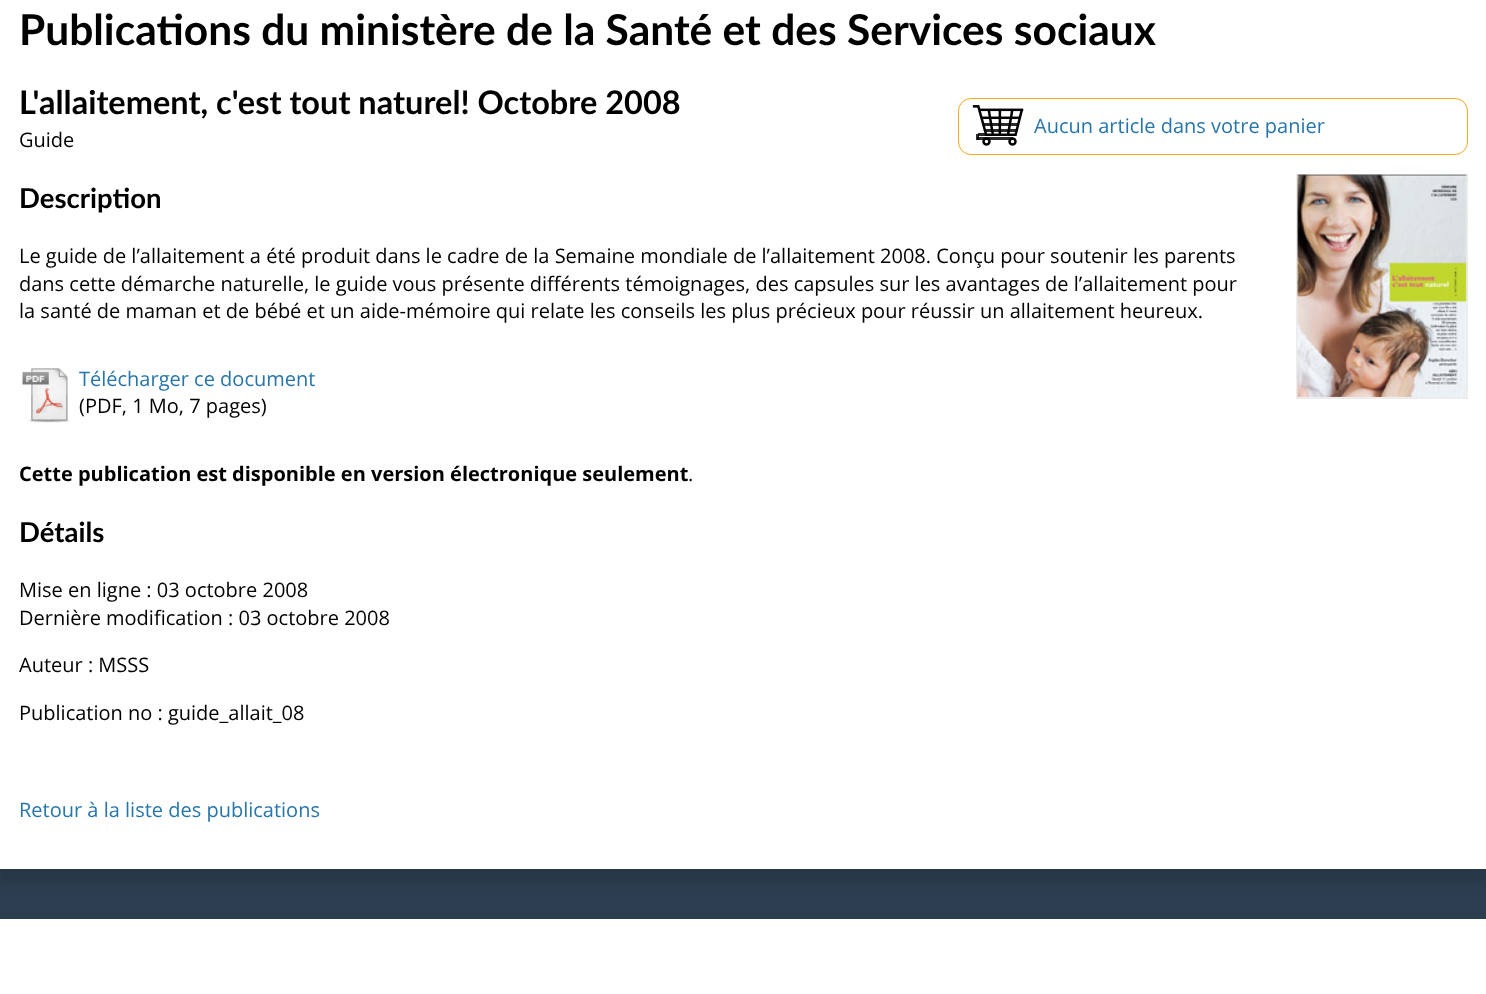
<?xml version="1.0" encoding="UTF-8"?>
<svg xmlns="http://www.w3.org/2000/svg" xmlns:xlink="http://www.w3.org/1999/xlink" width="1486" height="994">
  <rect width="100%" height="100%" fill="#ffffff" />
  <rect y="869" width="1486" height="50" fill="#2c3e50" />
  <rect x="-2" y="-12" width="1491" height="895" fill="#000000" fill-opacity="0.11" filter="blur(4px)" />
  <rect width="1486" height="869" fill="#ffffff" />
  <rect x="958.5" y="98.5" width="509" height="56" rx="12.5" fill="none" stroke="#fba81a" />
  <image x="972" y="105" width="52" height="41" xlink:href="image1.png" />
  <image x="22" y="368" width="48" height="55" xlink:href="image2.png" />
  <rect x="1296" y="174" width="172" height="225" fill="#edecec" />
  <image x="1297" y="174" width="170" height="223" xlink:href="image3.png" />
  <text x="19" y="45" style="font-family: Lato; font-size: 42.5px; font-weight: bold; fill: #000000">Publications du ministère de la Santé et des Services sociaux</text>
  <text x="19" y="114" style="font-family: Lato; font-size: 32.5px; font-weight: bold; fill: #000000">L'allaitement, c'est tout naturel! Octobre 2008</text>
  <text x="19" y="147" style="font-family: Open Sans; font-size: 20px; fill: #000000">Guide</text>
  <text x="1034" y="133" style="font-family: Open Sans; font-size: 20px; fill: #2676ab">Aucun article dans votre panier</text>
  <text x="19" y="208" style="font-family: Lato; font-size: 27.5px; font-weight: bold; fill: #000000">Description</text>
  <text x="19" y="263" style="font-family: Open Sans; font-size: 20px; fill: #000000">Le guide de l’allaitement a été produit dans le cadre de la Semaine mondiale de l’allaitement 2008. Conçu pour soutenir les parents</text>
  <text x="19" y="291" style="font-family: Open Sans; font-size: 20px; fill: #000000">dans cette démarche naturelle, le guide vous présente différents témoignages, des capsules sur les avantages de l’allaitement pour</text>
  <text x="19" y="318" style="font-family: Open Sans; font-size: 20px; fill: #000000">la santé de maman et de bébé et un aide-mémoire qui relate les conseils les plus précieux pour réussir un allaitement heureux.</text>
  <text x="79" y="386" style="font-family: Open Sans; font-size: 20px; fill: #2676ab">Télécharger ce document</text>
  <text x="79" y="413" style="font-family: Open Sans; font-size: 20px; fill: #000000">(PDF, 1 Mo, 7 pages)</text>
  <text x="19" y="481" style="font-family: Open Sans; font-size: 20px; font-weight: bold; fill: #000000">Cette publication est disponible en version électronique seulement</text>
  <text x="688" y="481" style="font-family: Open Sans; font-size: 20px; fill: #000000">.</text>
  <text x="19" y="542" style="font-family: Lato; font-size: 27.5px; font-weight: bold; fill: #000000">Détails</text>
  <text x="19" y="597" style="font-family: Open Sans; font-size: 20px; fill: #000000">Mise en ligne : 03 octobre 2008</text>
  <text x="19" y="625" style="font-family: Open Sans; font-size: 20px; fill: #000000">Dernière modification : 03 octobre 2008</text>
  <text x="19" y="672" style="font-family: Open Sans; font-size: 20px; fill: #000000">Auteur : MSSS</text>
  <text x="19" y="720" style="font-family: Open Sans; font-size: 20px; fill: #000000">Publication no : guide_allait_08</text>
  <text x="19" y="817" style="font-family: Open Sans; font-size: 20px; fill: #2676ab">Retour à la liste des publications</text>
</svg>
